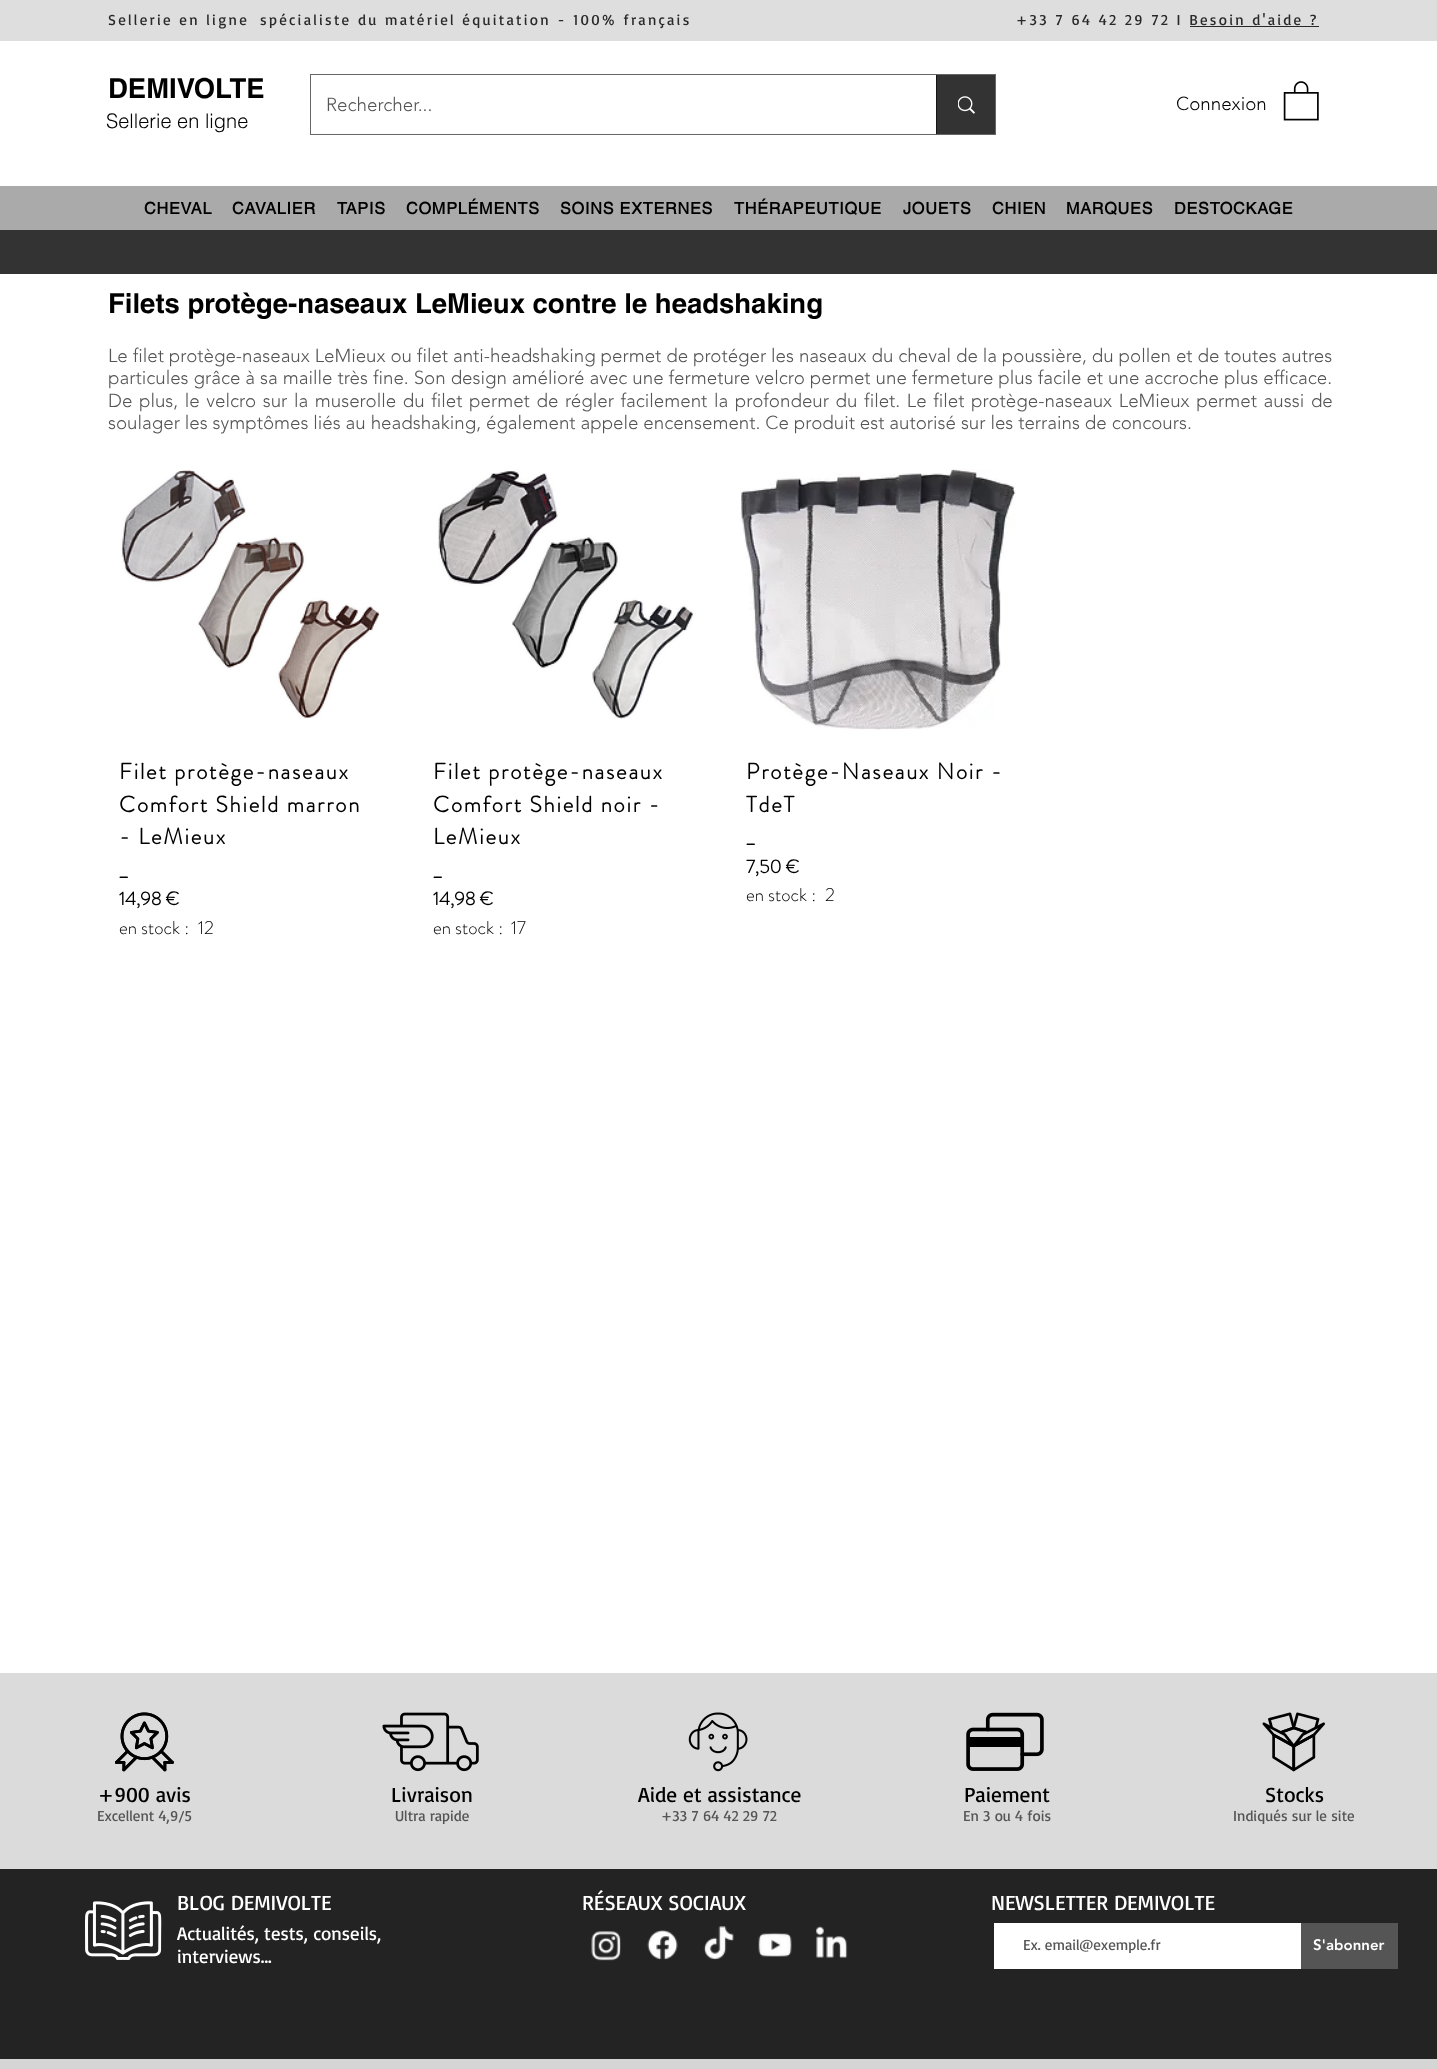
<?xml version="1.0" encoding="UTF-8"?>
<svg xmlns="http://www.w3.org/2000/svg" xmlns:xlink="http://www.w3.org/1999/xlink" width="1437" height="2069">
  <rect width="100%" height="100%" fill="#ffffff" />
  <rect width="1437" height="41" fill="#dedede" />
  <rect x="1190" y="26" width="129" height="1" fill="#292929" />
  <rect x="310.5" y="74.5" width="685" height="60" fill="none" stroke="#666666" />
  <rect x="937" y="75" width="58" height="59" fill="#333333" />
  <rect x="936" y="75" width="1" height="59" fill="#141414" />
  <image x="958" y="96" width="17" height="18" xlink:href="image1.png" />
  <image x="1283" y="81" width="36" height="40" xlink:href="image2.png" />
  <rect y="186" width="1437" height="44" fill="#aaaaaa" />
  <rect y="230" width="1437" height="44" fill="#333333" />
  <image x="121" y="470" width="259" height="249" xlink:href="image3.png" />
  <image x="438" y="471" width="256" height="248" xlink:href="image4.png" />
  <image x="740" y="469" width="276" height="261" xlink:href="image5.png" />
  <rect y="1673" width="1437" height="196" fill="#dbdbdb" />
  <image x="115" y="1712" width="59" height="60" xlink:href="image6.png" />
  <image x="115" y="1712" width="59" height="60" xlink:href="image7.png" />
  <image x="382" y="1712" width="97" height="60" xlink:href="image8.png" />
  <image x="688" y="1712" width="60" height="60" xlink:href="image9.png" />
  <image x="966" y="1712" width="78" height="59" xlink:href="image10.png" />
  <image x="1262" y="1712" width="63" height="60" xlink:href="image11.png" />
  <rect y="1869" width="1437" height="190" fill="#242323" />
  <image x="85" y="1901" width="77" height="59" xlink:href="image12.png" />
  <image x="591" y="1931" width="30" height="30" xlink:href="image13.png" />
  <image x="647" y="1930" width="31" height="30" xlink:href="image14.png" />
  <image x="703" y="1926" width="31" height="34" xlink:href="image15.png" />
  <image x="758" y="1932" width="34" height="25" xlink:href="image16.png" />
  <image x="815" y="1926" width="33" height="32" xlink:href="image17.png" />
  <rect x="994" y="1923" width="307" height="46" fill="#ffffff" />
  <rect x="1301" y="1923" width="97" height="46" fill="#555555" />
  <rect y="2059" width="1437" height="10" fill="#d5d5d5" />
  <text x="108" y="25" style="font-family: Basic; font-size: 15px; letter-spacing: 2.25px; fill: #292929">Sellerie en ligne</text>
  <text x="260" y="25" style="font-family: Basic; font-size: 15px; letter-spacing: 2.25px; fill: #292929">spécialiste du matériel équitation - 100% français</text>
  <text x="1016" y="25" style="font-family: Basic; font-size: 15px; letter-spacing: 2.25px; fill: #292929">+33 7 64 42 29 72 I Besoin d'aide ?</text>
  <text x="108" y="98" style="font-family: helvetica; font-size: 27.5px; font-weight: bold; fill: #000000">DEMIVOLTE</text>
  <text x="106" y="128" style="font-family: helvetica; font-size: 20px; font-weight: 300; fill: #000000">Sellerie en ligne</text>
  <text x="326" y="111" style="font-family: 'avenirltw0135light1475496'; font-size: 18.75px; font-weight: 300; fill: #555555">Rechercher...</text>
  <text x="1176" y="110" style="font-family: 'avenirltw0135light1475496'; font-size: 18.75px; font-weight: 300; fill: #000000">Connexion</text>
  <text x="144" y="214" style="font-family: 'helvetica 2'; font-size: 16.25px; font-weight: bold; letter-spacing: 0.75px; fill: #000000">CHEVAL</text>
  <text x="232" y="214" style="font-family: 'helvetica 2'; font-size: 16.25px; font-weight: bold; letter-spacing: 0.75px; fill: #000000">CAVALIER</text>
  <text x="337" y="214" style="font-family: 'helvetica 2'; font-size: 16.25px; font-weight: bold; letter-spacing: 0.75px; fill: #000000">TAPIS</text>
  <text x="406" y="214" style="font-family: 'helvetica 2'; font-size: 16.25px; font-weight: bold; letter-spacing: 0.75px; fill: #000000">COMPLÉMENTS</text>
  <text x="560" y="214" style="font-family: 'helvetica 2'; font-size: 16.25px; font-weight: bold; letter-spacing: 0.75px; fill: #000000">SOINS EXTERNES</text>
  <text x="734" y="214" style="font-family: 'helvetica 2'; font-size: 16.25px; font-weight: bold; letter-spacing: 0.75px; fill: #000000">THÉRAPEUTIQUE</text>
  <text x="903" y="214" style="font-family: 'helvetica 2'; font-size: 16.25px; font-weight: bold; letter-spacing: 0.75px; fill: #000000">JOUETS</text>
  <text x="992" y="214" style="font-family: 'helvetica 2'; font-size: 16.25px; font-weight: bold; letter-spacing: 0.75px; fill: #000000">CHIEN</text>
  <text x="1066" y="214" style="font-family: 'helvetica 2'; font-size: 16.25px; font-weight: bold; letter-spacing: 0.75px; fill: #000000">MARQUES</text>
  <text x="1174" y="214" style="font-family: 'helvetica 2'; font-size: 16.25px; font-weight: bold; letter-spacing: 0.75px; fill: #000000">DESTOCKAGE</text>
  <text x="108" y="313" style="font-family: helvetica; font-size: 27.5px; font-weight: bold; fill: #000000">Filets protège-naseaux LeMieux contre le headshaking</text>
  <text x="108" y="362" style="font-family: 'avenirltw0135light1475496'; font-size: 18.75px; font-weight: 300; fill: #555555">Le filet protège-naseaux LeMieux ou filet anti-headshaking permet de protéger les naseaux du cheval de la poussière, du pollen et de toutes autres</text>
  <text x="108" y="384" word-spacing="0.1" style="font-family: 'avenirltw0135light1475496'; font-size: 18.75px; font-weight: 300; fill: #555555">particules grâce à sa maille très fine. Son design amélioré avec une fermeture velcro permet une fermeture plus facile et une accroche plus efficace.</text>
  <text x="108" y="407" word-spacing="1.75" style="font-family: 'avenirltw0135light1475496'; font-size: 18.75px; font-weight: 300; fill: #555555">De plus, le velcro sur la muserolle du filet permet de régler facilement la profondeur du filet. Le filet protège-naseaux LeMieux permet aussi de</text>
  <text x="108" y="429" style="font-family: 'avenirltw0135light1475496'; font-size: 18.75px; font-weight: 300; fill: #555555">soulager les symptômes liés au headshaking, également appele encensement. Ce produit est autorisé sur les terrains de concours.</text>
  <text x="119" y="779" style="font-family: 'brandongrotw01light'; font-size: 22.5px; font-weight: bold; letter-spacing: 1.8px; fill: #000000">Filet protège-naseaux</text>
  <text x="119" y="812" style="font-family: 'brandongrotw01light'; font-size: 22.5px; font-weight: bold; letter-spacing: 1.8px; fill: #000000">Comfort Shield marron</text>
  <text x="119" y="844" style="font-family: 'brandongrotw01light'; font-size: 22.5px; font-weight: bold; letter-spacing: 1.8px; fill: #000000">- LeMieux</text>
  <text x="119" y="877" style="font-family: 'brandongrotw01light'; font-size: 22.5px; font-weight: bold; letter-spacing: 1.8px; fill: #000000">_</text>
  <text x="119" y="905" style="font-family: 'brandongrotw01light'; font-size: 18.75px; font-weight: bold; fill: #000000">14,98 €</text>
  <text x="119" y="934" style="font-family: 'brandongrotw01light'; font-size: 18.75px; font-weight: 300; fill: #000000">en stock :</text>
  <text x="198" y="934" style="font-family: 'brandongrotw01light'; font-size: 18.75px; font-weight: 300; fill: #000000">12</text>
  <text x="433" y="779" style="font-family: 'brandongrotw01light'; font-size: 22.5px; font-weight: bold; letter-spacing: 1.8px; fill: #000000">Filet protège-naseaux</text>
  <text x="433" y="812" style="font-family: 'brandongrotw01light'; font-size: 22.5px; font-weight: bold; letter-spacing: 1.8px; fill: #000000">Comfort Shield noir -</text>
  <text x="433" y="844" style="font-family: 'brandongrotw01light'; font-size: 22.5px; font-weight: bold; letter-spacing: 1.8px; fill: #000000">LeMieux</text>
  <text x="433" y="877" style="font-family: 'brandongrotw01light'; font-size: 22.5px; font-weight: bold; letter-spacing: 1.8px; fill: #000000">_</text>
  <text x="433" y="905" style="font-family: 'brandongrotw01light'; font-size: 18.75px; font-weight: bold; fill: #000000">14,98 €</text>
  <text x="433" y="934" style="font-family: 'brandongrotw01light'; font-size: 18.75px; font-weight: 300; fill: #000000">en stock :</text>
  <text x="511" y="934" style="font-family: 'brandongrotw01light'; font-size: 18.75px; font-weight: 300; fill: #000000">17</text>
  <text x="746" y="779" style="font-family: 'brandongrotw01light'; font-size: 22.5px; font-weight: bold; letter-spacing: 1.8px; fill: #000000">Protège-Naseaux Noir -</text>
  <text x="746" y="812" style="font-family: 'brandongrotw01light'; font-size: 22.5px; font-weight: bold; letter-spacing: 1.8px; fill: #000000">TdeT</text>
  <text x="746" y="844" style="font-family: 'brandongrotw01light'; font-size: 22.5px; font-weight: bold; letter-spacing: 1.8px; fill: #000000">_</text>
  <text x="746" y="873" style="font-family: 'brandongrotw01light'; font-size: 18.75px; font-weight: bold; fill: #000000">7,50 €</text>
  <text x="746" y="901" style="font-family: 'brandongrotw01light'; font-size: 18.75px; font-weight: 300; fill: #000000">en stock :</text>
  <text x="825" y="901" style="font-family: 'brandongrotw01light'; font-size: 18.75px; font-weight: 300; fill: #000000">2</text>
  <text x="98" y="1802" style="font-family: Basic; font-size: 21.25px; fill: #000000">+900 avis</text>
  <text x="97" y="1821" style="font-family: Basic; font-size: 15px; fill: #555555">Excellent 4,9/5</text>
  <text x="391" y="1802" style="font-family: Basic; font-size: 21.25px; fill: #000000">Livraison</text>
  <text x="395" y="1821" style="font-family: Basic; font-size: 15px; fill: #555555">Ultra rapide</text>
  <text x="638" y="1802" style="font-family: Basic; font-size: 21.25px; fill: #000000">Aide et assistance</text>
  <text x="661" y="1821" style="font-family: Basic; font-size: 15px; fill: #555555">+33 7 64 42 29 72</text>
  <text x="964" y="1802" style="font-family: Basic; font-size: 21.25px; fill: #000000">Paiement</text>
  <text x="963" y="1821" style="font-family: Basic; font-size: 15px; fill: #555555">En 3 ou 4 fois</text>
  <text x="1265" y="1802" style="font-family: Basic; font-size: 21.25px; fill: #000000">Stocks</text>
  <text x="1233" y="1821" style="font-family: Basic; font-size: 15px; fill: #555555">Indiqués sur le site</text>
  <text x="177" y="1910" style="font-family: Basic; font-size: 21.25px; fill: #ffffff">BLOG DEMIVOLTE</text>
  <text x="177" y="1940" style="font-family: Basic; font-size: 18.75px; fill: #ffffff">Actualités, tests, conseils,</text>
  <text x="177" y="1963" style="font-family: Basic; font-size: 18.75px; fill: #ffffff">interviews...</text>
  <text x="582" y="1910" style="font-family: Basic; font-size: 21.25px; fill: #ffffff">RÉSEAUX SOCIAUX</text>
  <text x="991" y="1910" style="font-family: Basic; font-size: 21.25px; fill: #ffffff">NEWSLETTER DEMIVOLTE</text>
  <text x="1023" y="1950" style="font-family: Basic; font-size: 15px; fill: #555555">Ex. email@exemple.fr</text>
  <text x="1313" y="1950" style="font-family: 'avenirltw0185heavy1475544'; font-size: 15px; font-weight: 900; fill: #ffffff">S'abonner</text>
</svg>
